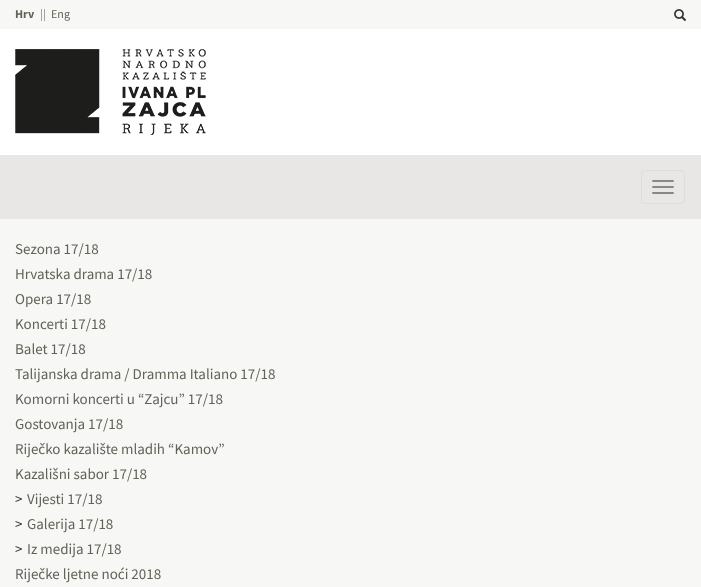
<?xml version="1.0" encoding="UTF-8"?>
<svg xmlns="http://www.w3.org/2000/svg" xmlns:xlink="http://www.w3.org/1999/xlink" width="701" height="587">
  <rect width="100%" height="100%" fill="#ffffff" />
  <rect width="701" height="29" fill="#f7f7f6" />
  <image x="674" y="9" width="12" height="12" xlink:href="image1.png" />
  <image x="15" y="49" width="191" height="86" xlink:href="image2.png" />
  <rect y="155" width="701" height="64" fill="#e8e7e6" />
  <rect x="641.5" y="170.5" width="43" height="33" rx="3.5" fill="none" stroke="#dddddd" />
  <rect x="652" y="180" width="22" height="2" rx="1" fill="#888888" />
  <rect x="652" y="186" width="22" height="2" rx="1" fill="#888888" />
  <rect x="652" y="192" width="22" height="2" rx="1" fill="#888888" />
  <rect y="219" width="701" height="368" fill="#f7f7f6" />
  <text x="15" y="18" style="font-family: Source Sans Pro; font-size: 12px; font-weight: bold; fill: #636258">Hrv</text>
  <text x="40" y="18" style="font-family: Source Sans Pro; font-size: 12px; fill: #808080">||</text>
  <text x="51" y="18" style="font-family: Source Sans Pro; font-size: 12px; fill: #636258">Eng</text>
  <text x="15" y="254" style="font-family: Source Sans Pro; font-size: 15px; fill: #636258">Sezona 17/18</text>
  <text x="15" y="279" style="font-family: Source Sans Pro; font-size: 15px; fill: #636258">Hrvatska drama 17/18</text>
  <text x="15" y="304" style="font-family: Source Sans Pro; font-size: 15px; fill: #636258">Opera 17/18</text>
  <text x="15" y="329" style="font-family: Source Sans Pro; font-size: 15px; fill: #636258">Koncerti 17/18</text>
  <text x="15" y="354" style="font-family: Source Sans Pro; font-size: 15px; fill: #636258">Balet 17/18</text>
  <text x="15" y="379" style="font-family: Source Sans Pro; font-size: 15px; fill: #636258">Talijanska drama / Dramma Italiano 17/18</text>
  <text x="15" y="404" style="font-family: Source Sans Pro; font-size: 15px; fill: #636258">Komorni koncerti u “Zajcu” 17/18</text>
  <text x="15" y="429" style="font-family: Source Sans Pro; font-size: 15px; fill: #636258">Gostovanja 17/18</text>
  <text x="15" y="454" style="font-family: Source Sans Pro; font-size: 15px; fill: #636258">Riječko kazalište mladih “Kamov”</text>
  <text x="15" y="479" style="font-family: Source Sans Pro; font-size: 15px; fill: #636258">Kazališni sabor 17/18</text>
  <text x="15" y="504" style="font-family: Source Sans Pro; font-size: 15px; fill: #333333">&gt;</text>
  <text x="27" y="504" style="font-family: Source Sans Pro; font-size: 15px; fill: #636258">Vijesti 17/18</text>
  <text x="15" y="529" style="font-family: Source Sans Pro; font-size: 15px; fill: #333333">&gt;</text>
  <text x="27" y="529" style="font-family: Source Sans Pro; font-size: 15px; fill: #636258">Galerija 17/18</text>
  <text x="15" y="554" style="font-family: Source Sans Pro; font-size: 15px; fill: #333333">&gt;</text>
  <text x="27" y="554" style="font-family: Source Sans Pro; font-size: 15px; fill: #636258">Iz medija 17/18</text>
  <text x="15" y="579" style="font-family: Source Sans Pro; font-size: 15px; fill: #636258">Riječke ljetne noći 2018</text>
</svg>
